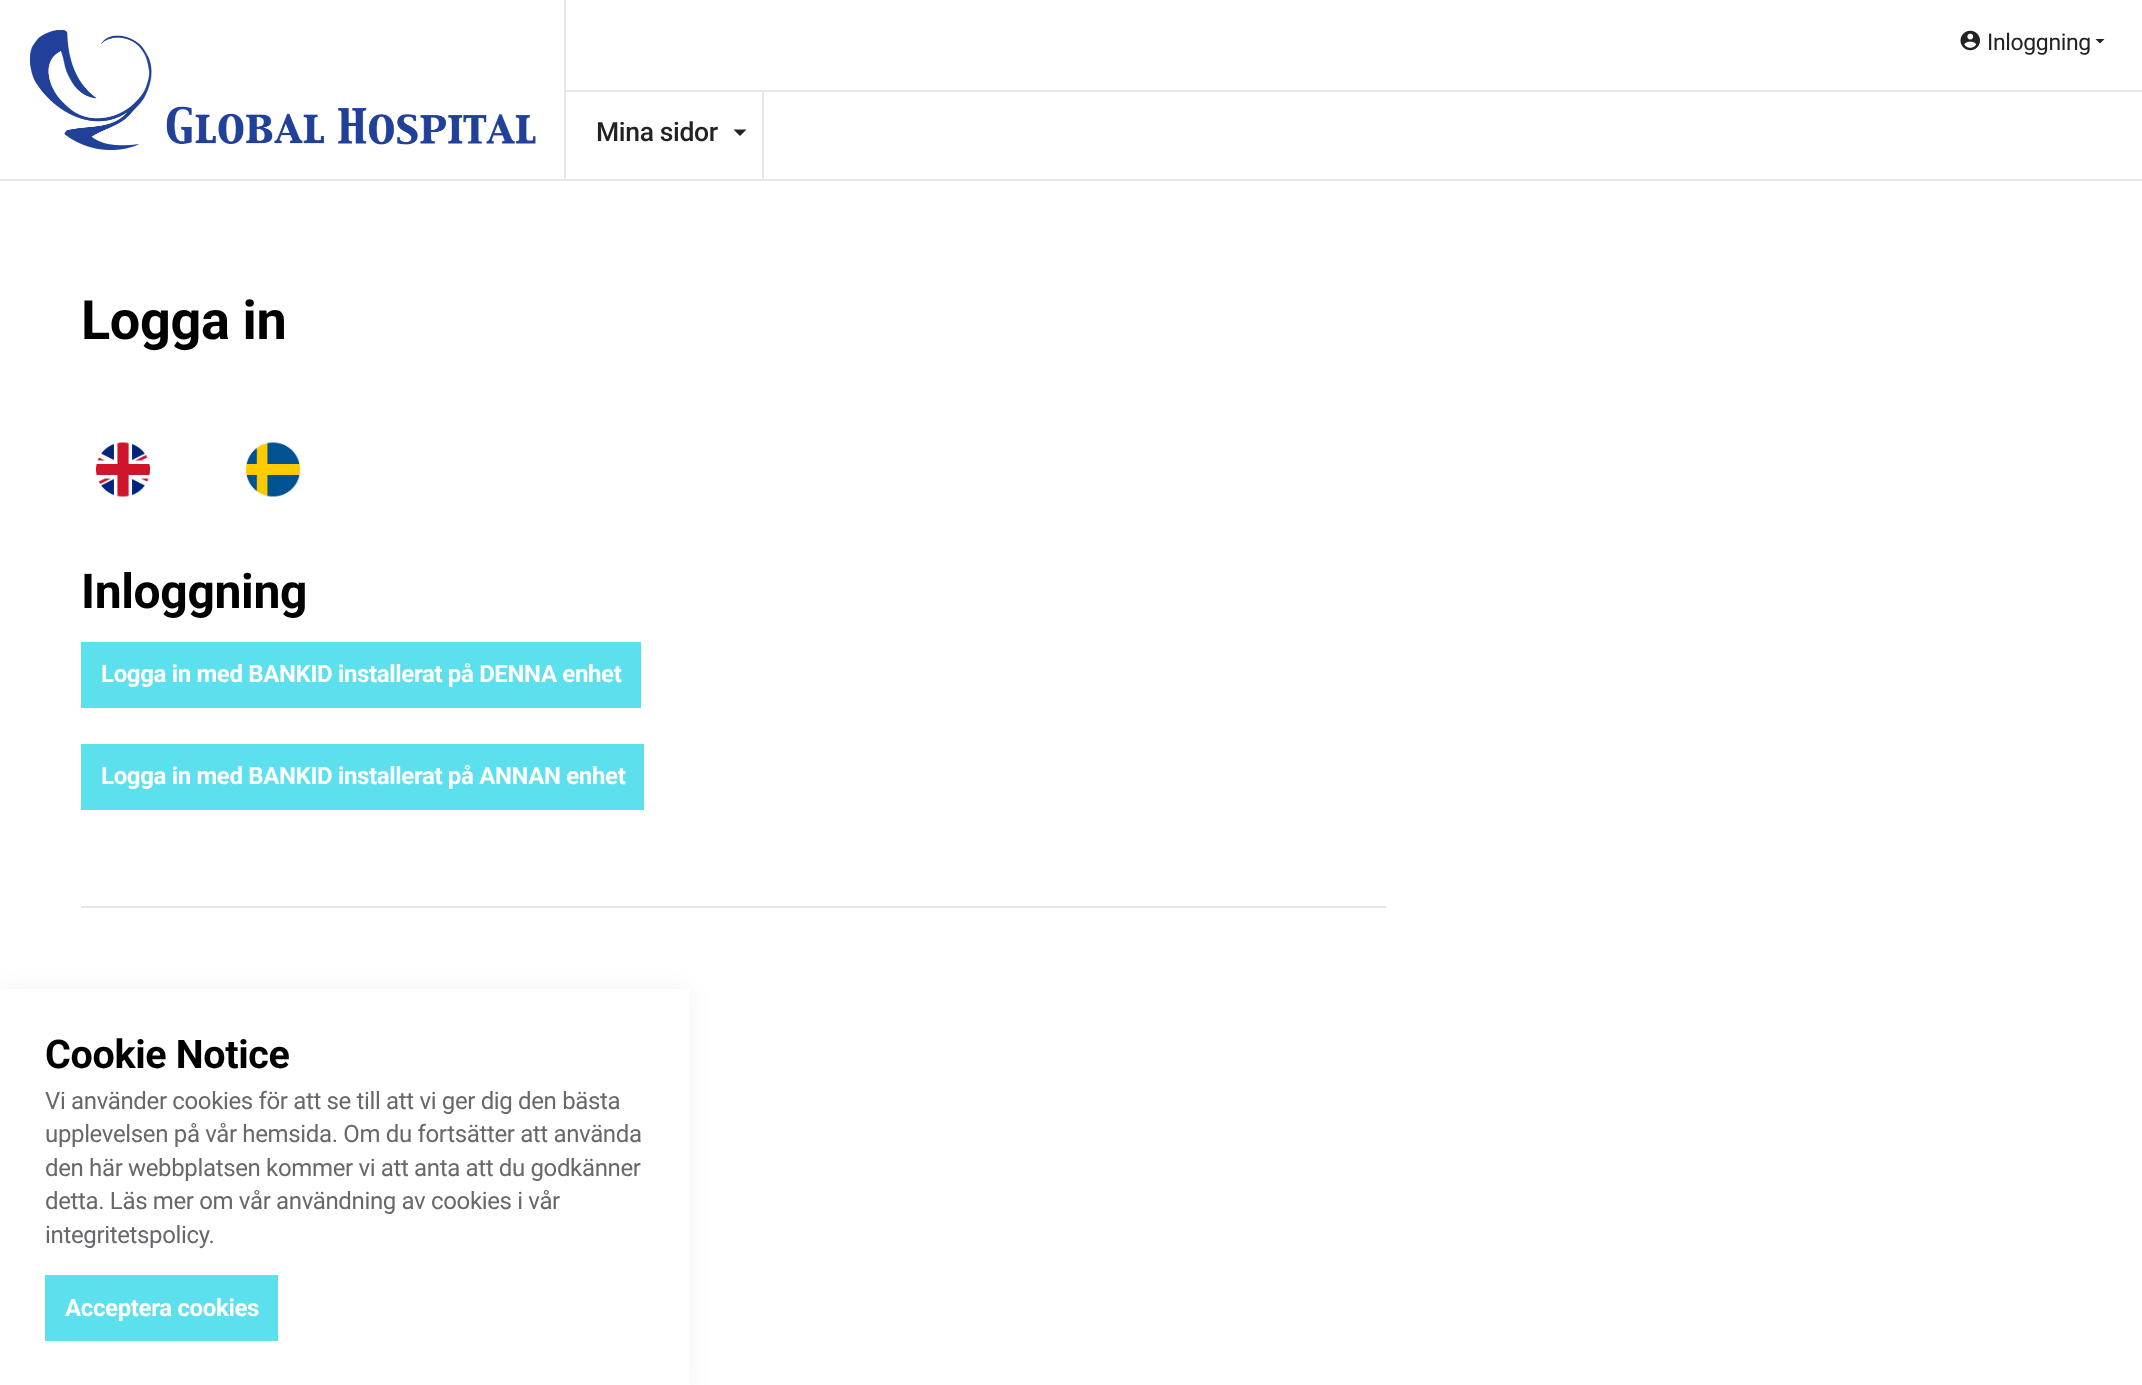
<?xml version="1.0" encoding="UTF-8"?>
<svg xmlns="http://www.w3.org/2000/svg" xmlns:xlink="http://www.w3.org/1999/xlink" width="2142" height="1385">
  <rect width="100%" height="100%" fill="#ffffff" />
  <image x="30" y="30" width="506" height="120" xlink:href="image1.png" />
  <rect x="564" width="2" height="180" fill="#e7e7e7" />
  <image x="1960" y="30" width="20" height="21" xlink:href="image2.png" />
  <path d="M 2095.5 39 h 9 l -4.5 4.5 z" fill="#222222" />
  <rect y="179" width="2142" height="2" fill="#e7e7e7" />
  <rect x="762" y="90" width="2" height="90" fill="#e7e7e7" />
  <rect x="566" y="90" width="1576" height="2" fill="#e7e7e7" />
  <path d="M 733.5 129.5 h 13 l -6.5 6.5 z" fill="#222222" />
  <image x="96" y="442" width="54" height="55" xlink:href="image3.png" />
  <image x="246" y="442" width="54" height="55" xlink:href="image4.png" />
  <rect x="81" y="642" width="560" height="66" fill="#5de0ee" />
  <rect x="81" y="744" width="563" height="66" fill="#5de0ee" />
  <rect x="81" y="906" width="1305" height="2" fill="#e6e6e6" />
  <rect y="989" width="690" height="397" fill="#000000" fill-opacity="0.05" filter="blur(11px)" />
  <rect y="989" width="690" height="396" fill="#ffffff" />
  <rect x="45" y="1275" width="233" height="66" fill="#5de0ee" />
  <text x="1987" y="50" style="font-family: Roboto; font-size: 23px; letter-spacing: -0.35px; fill: #222222">Inloggning</text>
  <text x="596" y="141" style="font-family: Roboto; font-size: 26.5px; font-weight: 500; letter-spacing: -0.35px; fill: #222222">Mina sidor</text>
  <text x="81" y="339" style="font-family: Roboto; font-size: 54px; font-weight: bold; letter-spacing: -0.35px; fill: #000000">Logga in</text>
  <text x="81" y="608" style="font-family: Roboto; font-size: 48px; font-weight: bold; letter-spacing: -0.35px; fill: #000000">Inloggning</text>
  <text x="101" y="682" style="font-family: Roboto; font-size: 24px; font-weight: bold; letter-spacing: -0.35px; fill: #ffffff">Logga in med BANKID installerat på DENNA enhet</text>
  <text x="101" y="784" style="font-family: Roboto; font-size: 24px; font-weight: bold; letter-spacing: -0.35px; fill: #ffffff">Logga in med BANKID installerat på ANNAN enhet</text>
  <text x="45" y="1068" style="font-family: Roboto; font-size: 39.5px; font-weight: bold; letter-spacing: -0.35px; fill: #000000">Cookie Notice</text>
  <text x="45" y="1109" style="font-family: Roboto; font-size: 24px; letter-spacing: -0.35px; fill: #68676b">Vi använder cookies för att se till att vi ger dig den bästa</text>
  <text x="45" y="1142" style="font-family: Roboto; font-size: 24px; letter-spacing: -0.35px; fill: #68676b">upplevelsen på vår hemsida. Om du fortsätter att använda</text>
  <text x="45" y="1176" style="font-family: Roboto; font-size: 24px; letter-spacing: -0.35px; fill: #68676b">den här webbplatsen kommer vi att anta att du godkänner</text>
  <text x="45" y="1209" style="font-family: Roboto; font-size: 24px; letter-spacing: -0.35px; fill: #68676b">detta. Läs mer om vår användning av cookies i vår</text>
  <text x="45" y="1243" style="font-family: Roboto; font-size: 24px; letter-spacing: -0.35px; fill: #68676b">integritetspolicy.</text>
  <text x="65" y="1316" style="font-family: Roboto; font-size: 24px; font-weight: bold; letter-spacing: -0.35px; fill: #ffffff">Acceptera cookies</text>
</svg>
